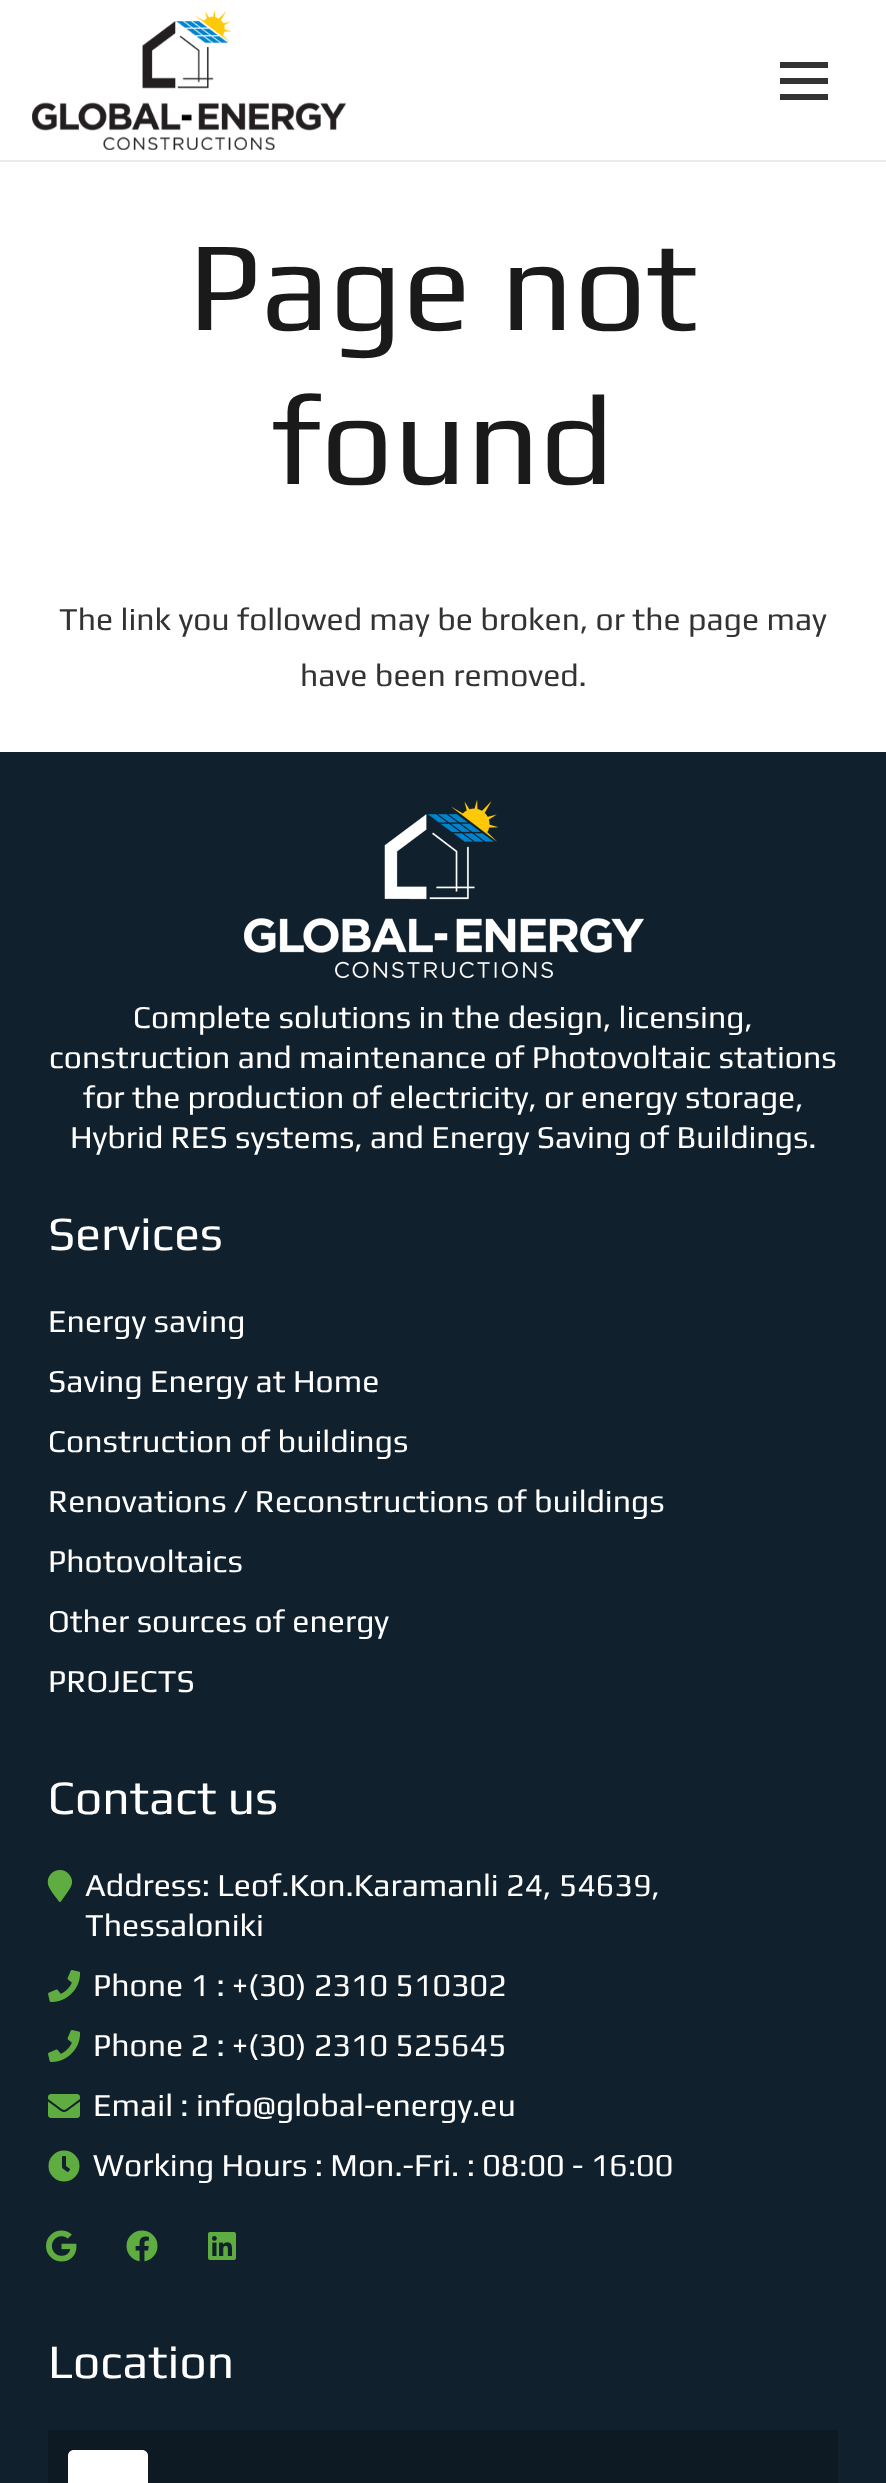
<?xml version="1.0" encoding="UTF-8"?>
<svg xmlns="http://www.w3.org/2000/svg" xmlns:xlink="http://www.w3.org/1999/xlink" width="886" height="2483">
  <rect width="100%" height="100%" fill="#ffffff" />
  <rect y="160" width="886" height="2" fill="#ebebeb" />
  <image x="32" y="10" width="314" height="140" xlink:href="image1.png" />
  <rect x="780" y="78" width="48" height="6" fill="#333333" />
  <rect x="780" y="62" width="48" height="6" fill="#333333" />
  <rect x="780" y="94" width="48" height="6" fill="#333333" />
  <rect y="752" width="886" height="1731" fill="#10202d" />
  <image x="244" y="800" width="400" height="178" xlink:href="image2.png" />
  <path d="M 59 1901.5 c -3 -4 -10 -12.5 -11 -17 c -2.5 -13 14.5 -20 22 -9 c 5.5 8 -1 14.5 -5.5 21 l -4 5.5 c -0.5 0 -1.5 0 -1.5 -0.5 z" fill="#5fad41" />
  <image x="48" y="1970" width="33" height="32" xlink:href="image3.png" />
  <image x="48" y="2030" width="33" height="32" xlink:href="image3.png" />
  <image x="48" y="2094" width="32" height="24" xlink:href="image4.png" />
  <image x="48" y="2150" width="32" height="32" xlink:href="image5.png" />
  <image x="46" y="2230" width="31" height="32" xlink:href="image6.png" />
  <image x="126" y="2230" width="32" height="32" xlink:href="image7.png" />
  <image x="208" y="2232" width="28" height="28" xlink:href="image8.png" />
  <rect x="48" y="2430" width="790" height="53" fill="#0d1a24" />
  <path d="M 74 2450 h 68 c 3.5 0 6 2.5 6 6 v 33 h -80 v -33 c 0 -3.5 2.5 -6 6 -6 z" fill="#ffffff" />
  <text x="188" y="330" style="font-family: Play; font-size: 128px; fill: #1a1a1a">Page not</text>
  <text x="272" y="484" style="font-family: Play; font-size: 128px; fill: #1a1a1a">found</text>
  <text x="59" y="630" style="font-family: Play; font-size: 32px; fill: #333333">The link you followed may be broken, or the page may</text>
  <text x="300" y="686" style="font-family: Play; font-size: 32px; fill: #333333">have been removed.</text>
  <text x="133" y="1028" style="font-family: Play; font-size: 32px; fill: #ffffff">Complete solutions in the design, licensing,</text>
  <text x="49" y="1068" style="font-family: Play; font-size: 32px; fill: #ffffff">construction and maintenance of Photovoltaic stations</text>
  <text x="83" y="1108" style="font-family: Play; font-size: 32px; fill: #ffffff">for the production of electricity, or energy storage,</text>
  <text x="70" y="1148" style="font-family: Play; font-size: 32px; fill: #ffffff">Hybrid RES systems, and Energy Saving of Buildings.</text>
  <text x="48" y="1250" style="font-family: Play; font-size: 48px; fill: #ffffff">Services</text>
  <text x="48" y="1332" style="font-family: Play; font-size: 32px; fill: #ffffff">Energy saving</text>
  <text x="48" y="1392" style="font-family: Play; font-size: 32px; fill: #ffffff">Saving Energy at Home</text>
  <text x="48" y="1452" style="font-family: Play; font-size: 32px; fill: #ffffff">Construction of buildings</text>
  <text x="48" y="1512" style="font-family: Play; font-size: 32px; fill: #ffffff">Renovations / Reconstructions of buildings</text>
  <text x="48" y="1572" style="font-family: Play; font-size: 32px; fill: #ffffff">Photovoltaics</text>
  <text x="48" y="1632" style="font-family: Play; font-size: 32px; fill: #ffffff">Other sources of energy</text>
  <text x="48" y="1692" style="font-family: Play; font-size: 32px; fill: #ffffff">PROJECTS</text>
  <text x="48" y="1814" style="font-family: Play; font-size: 48px; fill: #ffffff">Contact us</text>
  <text x="85" y="1896" style="font-family: Play; font-size: 32px; fill: #ffffff">Address: Leof.Kon.Karamanli 24, 54639,</text>
  <text x="85" y="1936" style="font-family: Play; font-size: 32px; fill: #ffffff">Thessaloniki</text>
  <text x="93" y="1996" style="font-family: Play; font-size: 32px; fill: #ffffff">Phone 1 : +(30) 2310 510302</text>
  <text x="93" y="2056" style="font-family: Play; font-size: 32px; fill: #ffffff">Phone 2 : +(30) 2310 525645</text>
  <text x="93" y="2116" style="font-family: Play; font-size: 32px; fill: #ffffff">Email : info@global-energy.eu</text>
  <text x="93" y="2176" style="font-family: Play; font-size: 32px; fill: #ffffff">Working Hours : Mon.-Fri. : 08:00 - 16:00</text>
  <text x="48" y="2378" style="font-family: Play; font-size: 48px; fill: #ffffff">Location</text>
</svg>
